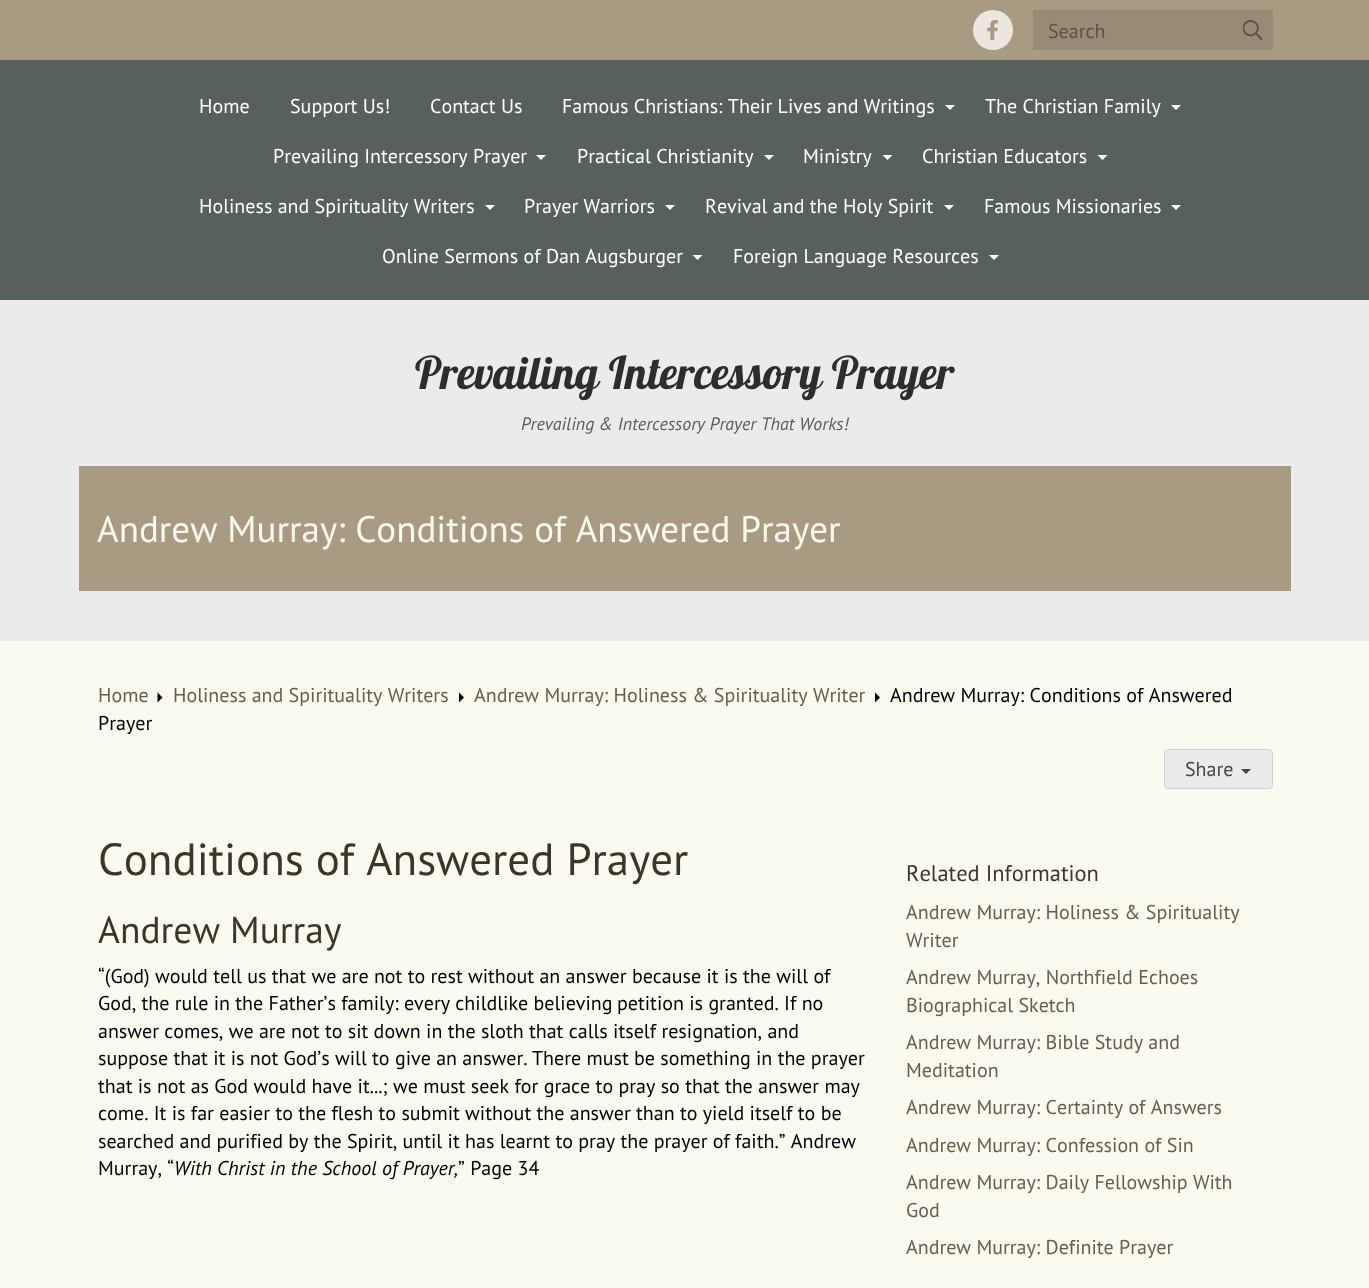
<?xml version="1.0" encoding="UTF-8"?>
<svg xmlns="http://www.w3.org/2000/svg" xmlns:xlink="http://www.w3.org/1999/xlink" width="1369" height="1288">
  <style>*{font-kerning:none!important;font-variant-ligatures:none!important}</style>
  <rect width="100%" height="100%" fill="#fafaf1" />
  <rect y="300" width="1369" height="341" fill="#ebebeb" />
  <rect width="1369" height="60" fill="#a99a82" />
  <circle cx="993" cy="30" r="20" fill="#eae6e0" />
  <image x="987" y="20" width="11" height="20" xlink:href="image1.png" />
  <rect x="1033" y="10" width="240" height="40" fill="#988b75" />
  <image x="1243" y="20" width="20" height="20" xlink:href="image2.png" />
  <rect y="60" width="1369" height="240" fill="#57605d" />
  <path d="M 945 105 h 10 l -5 5 z" fill="#ffffff" />
  <path d="M 1171 105 h 10 l -5 5 z" fill="#ffffff" />
  <path d="M 536 155 h 10 l -5 5 z" fill="#ffffff" />
  <path d="M 764 155 h 10 l -5 5 z" fill="#ffffff" />
  <path d="M 882.5 155 h 10 l -5 5 z" fill="#ffffff" />
  <path d="M 1097.5 155 h 10 l -5 5 z" fill="#ffffff" />
  <path d="M 485 205 h 10 l -5 5 z" fill="#ffffff" />
  <path d="M 665 205 h 10 l -5 5 z" fill="#ffffff" />
  <path d="M 944 205 h 10 l -5 5 z" fill="#ffffff" />
  <path d="M 1171 205 h 10 l -5 5 z" fill="#ffffff" />
  <path d="M 692.5 255 h 10 l -5 5 z" fill="#ffffff" />
  <path d="M 989 255 h 10 l -5 5 z" fill="#ffffff" />
  <rect x="79" y="466" width="1212" height="125" fill="#a99a82" />
  <path d="M 157.5 702.5 v -10 l 5 5 z" fill="#000000" />
  <path d="M 459 702.5 v -10 l 5 5 z" fill="#000000" />
  <path d="M 875 702.5 v -10 l 5 5 z" fill="#000000" />
  <rect x="1164.5" y="749.5" width="108" height="39" rx="3.5" fill="#ebebeb" stroke="#d2d2d2" />
  <path d="M 1241 769 h 10 l -5 5 z" fill="#454545" />
  <text x="1048" y="38" style="font-family: PT Sans; font-size: 20px; fill: #5b5346">Search</text>
  <text x="199" y="113" style="font-family: PT Sans; font-size: 20px; fill: #ffffff">Home</text>
  <text x="290" y="113" style="font-family: PT Sans; font-size: 20px; fill: #ffffff">Support Us!</text>
  <text x="430" y="113" style="font-family: PT Sans; font-size: 20px; fill: #ffffff">Contact Us</text>
  <text x="562" y="113" style="font-family: PT Sans; font-size: 20px; fill: #ffffff">Famous Christians: Their Lives and Writings</text>
  <text x="985" y="113" style="font-family: PT Sans; font-size: 20px; fill: #ffffff">The Christian Family</text>
  <text x="273" y="163" style="font-family: PT Sans; font-size: 20px; fill: #ffffff">Prevailing Intercessory Prayer</text>
  <text x="577" y="163" style="font-family: PT Sans; font-size: 20px; fill: #ffffff">Practical Christianity</text>
  <text x="803" y="163" style="font-family: PT Sans; font-size: 20px; fill: #ffffff">Ministry</text>
  <text x="922" y="163" style="font-family: PT Sans; font-size: 20px; fill: #ffffff">Christian Educators</text>
  <text x="199" y="213" style="font-family: PT Sans; font-size: 20px; fill: #ffffff">Holiness and Spirituality Writers</text>
  <text x="524" y="213" style="font-family: PT Sans; font-size: 20px; fill: #ffffff">Prayer Warriors</text>
  <text x="705" y="213" style="font-family: PT Sans; font-size: 20px; fill: #ffffff">Revival and the Holy Spirit</text>
  <text x="984" y="213" style="font-family: PT Sans; font-size: 20px; fill: #ffffff">Famous Missionaries</text>
  <text x="382" y="263" style="font-family: PT Sans; font-size: 20px; fill: #ffffff">Online Sermons of Dan Augsburger</text>
  <text x="733" y="263" style="font-family: PT Sans; font-size: 20px; fill: #ffffff">Foreign Language Resources</text>
  <text x="415" y="389" style="font-family: Lobster; font-size: 45px; fill: #2d2d2d">Prevailing Intercessory Prayer</text>
  <text x="521" y="430" style="font-family: PT Sans; font-size: 18px; font-style: italic; fill: #57605d">Prevailing &amp; Intercessory Prayer That Works!</text>
  <text x="97" y="542" style="font-family: PT Sans; font-size: 37px; fill: #fafaf1">Andrew Murray: Conditions of Answered Prayer</text>
  <text x="98" y="702" style="font-family: PT Sans; font-size: 20px; fill: #695d49">Home</text>
  <text x="173" y="702" style="font-family: PT Sans; font-size: 20px; fill: #695d49">Holiness and Spirituality Writers</text>
  <text x="474" y="702" style="font-family: PT Sans; font-size: 20px; fill: #695d49">Andrew Murray: Holiness &amp; Spirituality Writer</text>
  <text x="890" y="702" style="font-family: PT Sans; font-size: 20px; fill: #000000">Andrew Murray: Conditions of Answered</text>
  <text x="98" y="730" style="font-family: PT Sans; font-size: 20px; fill: #000000">Prayer</text>
  <text x="1185" y="776" style="font-family: PT Sans; font-size: 20px; fill: #454545">Share</text>
  <text x="98" y="875" style="font-family: PT Sans; font-size: 45px; fill: #3c352a">Conditions of Answered Prayer</text>
  <text x="98" y="943" style="font-family: PT Sans; font-size: 37.5px; fill: #3c352a">Andrew Murray</text>
  <text x="98" y="983" style="font-family: PT Sans; font-size: 20px; fill: #000000">“(God) would tell us that we are not to rest without an answer because it is the will of</text>
  <text x="98" y="1010" style="font-family: PT Sans; font-size: 20px; fill: #000000">God, the rule in the Father’s family: every childlike believing</text>
  <text x="617" y="1010" style="font-family: PT Sans; font-size: 20px; fill: #000000">petition is granted. If no</text>
  <text x="98" y="1038" style="font-family: PT Sans; font-size: 20px; fill: #000000">answer comes, we are not to sit down in the sloth that calls itself resignation, and</text>
  <text x="98" y="1065" style="font-family: PT Sans; font-size: 20px; fill: #000000">suppose that it is not God’s will to give an answer.</text>
  <text x="532" y="1065" style="font-family: PT Sans; font-size: 20px; fill: #000000">There must be something in the prayer</text>
  <text x="98" y="1093" style="font-family: PT Sans; font-size: 20px; fill: #000000">that is not as God would have it...; we must seek for grace to pray so that the answer may</text>
  <text x="98" y="1120" style="font-family: PT Sans; font-size: 20px; fill: #000000">come. It is far easier to the flesh to submit without the answer than to yield itself to be</text>
  <text x="98" y="1148" style="font-family: PT Sans; font-size: 20px; fill: #000000">searched and purified by the Spirit, until it has learnt to pray the prayer of</text>
  <text x="735" y="1148" style="font-family: PT Sans; font-size: 20px; fill: #000000">faith.” Andrew</text>
  <text x="98" y="1175" style="font-family: PT Sans; font-size: 20px; fill: #000000">Murray, “</text>
  <text x="174" y="1175" style="font-family: PT Sans; font-size: 20px; font-style: italic; fill: #000000">With Christ in the School of Prayer,</text>
  <text x="458" y="1175" style="font-family: PT Sans; font-size: 20px; fill: #000000">” Page 34</text>
  <text x="906" y="881" style="font-family: PT Sans; font-size: 22.5px; fill: #3c352a">Related Information</text>
  <text x="906" y="919" style="font-family: PT Sans; font-size: 20px; fill: #695d49">Andrew Murray: Holiness &amp; Spirituality</text>
  <text x="906" y="947" style="font-family: PT Sans; font-size: 20px; fill: #695d49">Writer</text>
  <text x="906" y="984" style="font-family: PT Sans; font-size: 20px; fill: #695d49">Andrew Murray, Northfield Echoes</text>
  <text x="906" y="1012" style="font-family: PT Sans; font-size: 20px; fill: #695d49">Biographical Sketch</text>
  <text x="906" y="1049" style="font-family: PT Sans; font-size: 20px; fill: #695d49">Andrew Murray: Bible Study and</text>
  <text x="906" y="1077" style="font-family: PT Sans; font-size: 20px; fill: #695d49">Meditation</text>
  <text x="906" y="1114" style="font-family: PT Sans; font-size: 20px; fill: #695d49">Andrew Murray: Certainty of Answers</text>
  <text x="906" y="1152" style="font-family: PT Sans; font-size: 20px; fill: #695d49">Andrew Murray: Confession of Sin</text>
  <text x="906" y="1189" style="font-family: PT Sans; font-size: 20px; fill: #695d49">Andrew Murray: Daily Fellowship With</text>
  <text x="906" y="1217" style="font-family: PT Sans; font-size: 20px; fill: #695d49">God</text>
  <text x="906" y="1254" style="font-family: PT Sans; font-size: 20px; fill: #695d49">Andrew Murray: Definite Prayer</text>
</svg>
